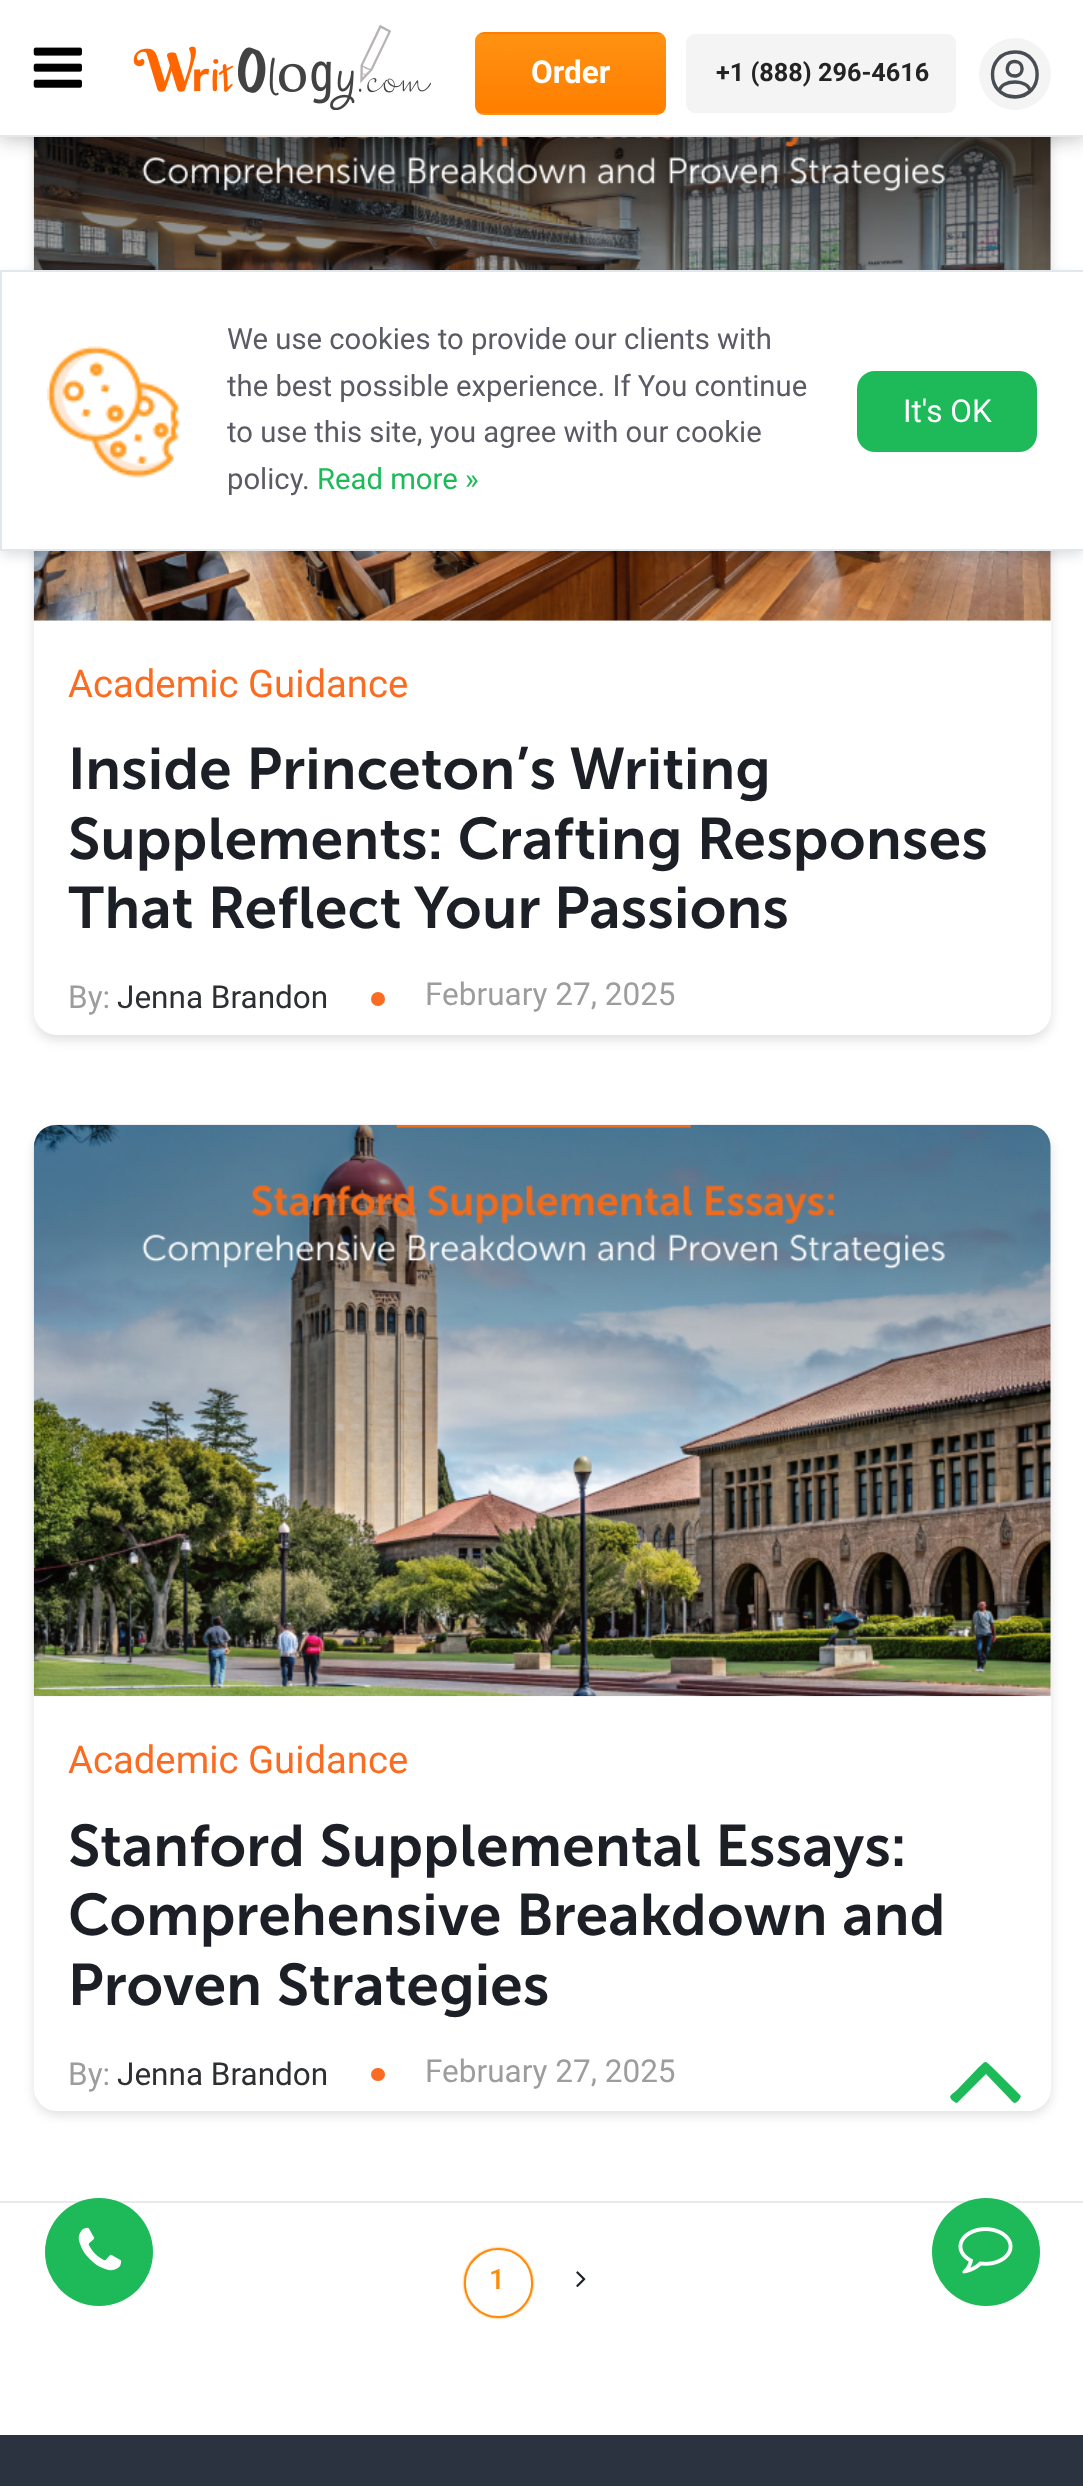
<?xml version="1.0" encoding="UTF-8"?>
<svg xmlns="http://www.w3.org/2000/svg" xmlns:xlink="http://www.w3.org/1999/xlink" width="1083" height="2486">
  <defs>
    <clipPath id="clip1"><path d="M 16 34 h 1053 v 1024 h -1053 z m 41 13 h 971 c 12.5 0 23 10.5 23 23 v 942 c 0 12.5 -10.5 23 -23 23 h -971 c -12.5 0 -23 -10.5 -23 -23 v -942 c 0 -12.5 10.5 -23 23 -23 z" clip-rule="evenodd" /></clipPath>
    <clipPath id="clip2"><rect x="475" y="32" width="191" height="83" rx="9" /></clipPath>
    <linearGradient id="g1" gradientUnits="userSpaceOnUse" x1="570" y1="-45" x2="570" y2="34"><stop offset="0" stop-color="#ff9212" /><stop offset="1" stop-color="#ff7e00" /></linearGradient>
    <linearGradient id="g2" gradientUnits="userSpaceOnUse" x1="570" y1="34" x2="570" y2="113"><stop offset="0" stop-color="#ff9212" /><stop offset="1" stop-color="#ff7e00" /></linearGradient>
    <linearGradient id="g3" gradientUnits="userSpaceOnUse" x1="570" y1="113" x2="570" y2="191"><stop offset="0" stop-color="#ff9212" /><stop offset="1" stop-color="#ff7e00" /></linearGradient>
    <clipPath id="clip3"><path d="M 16 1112 h 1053 v 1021 h -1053 z m 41 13 h 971 c 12.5 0 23 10.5 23 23 v 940 c 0 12.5 -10.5 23 -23 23 h -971 c -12.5 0 -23 -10.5 -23 -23 v -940 c 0 -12.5 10.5 -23 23 -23 z" clip-rule="evenodd" /></clipPath>
  </defs>
  <rect width="100%" height="100%" fill="#ffffff" />
  <g clip-path="url(#clip1)">
    <rect x="34" y="52" width="1017" height="988" rx="23" fill="#000000" fill-opacity="0.12" filter="blur(5.5px)" />
  </g>
  <image x="33" y="137" width="1018" height="484" xlink:href="image6.png" />
  <rect width="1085" height="137" fill="#000000" fill-opacity="0.3" filter="blur(11px)" />
  <rect width="1083" height="135" fill="#ffffff" />
  <rect y="135" width="1083" height="2" fill="#e7e7e8" />
  <image x="33" y="47" width="49" height="41" xlink:href="image1.png" />
  <image x="133" y="25" width="298" height="85" xlink:href="image2.png" />
  <g clip-path="url(#clip2)">
    <rect x="475" y="32" width="191" height="2" fill="url(#g1)" />
    <rect x="475" y="34" width="191" height="79" fill="url(#g2)" />
    <rect x="475" y="113" width="191" height="2" fill="url(#g3)" />
  </g>
  <rect x="686" y="34" width="270" height="79" rx="9" fill="#f4f4f5" />
  <circle cx="1015" cy="74" r="36" fill="#f4f4f5" />
  <path d="M 1015 97 c 29.5 0 29.5 -45 0 -45 c -30 0 -30 45 0 45 z m 0 -21 l -3.5 -0.5 c -7 -3.5 -4.5 -14 3 -14 c 10 0 10 14 0.5 14.5 z m 15 15 c -8.5 7.5 -22 7.5 -30.5 0 c 1.5 -12 29 -12 30.5 0 z" fill="none" stroke="#484c53" stroke-width="3.4" stroke-linecap="round" stroke-linejoin="round" />
  <rect x="2" y="277" width="1080" height="277" fill="#000000" fill-opacity="0.15" filter="blur(7px)" />
  <rect x="1" y="271" width="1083" height="279" fill="#ffffff" stroke="#e2e7eb" stroke-width="2" />
  <image x="47" y="346" width="134" height="132" xlink:href="image3.png" />
  <rect x="857" y="371" width="180" height="81" rx="18" fill="#1eba59" />
  <g clip-path="url(#clip3)">
    <rect x="34" y="1130" width="1017" height="985" rx="23" fill="#000000" fill-opacity="0.12" filter="blur(5.5px)" />
  </g>
  <path d="M 1020 2095 c 2 2 -1 5 -2 6 c -4 4 -5 1 -9 -3 l -23 -24 l -29 29 c -1 0 -2 -1 -4 -2 c -5 -5 -3 -5 4 -11 l 21 -22 c 9 -8 6 -8 15 0 z" fill="#1eba59" />
  <rect y="2201" width="1083" height="2" fill="#e9e9e9" />
  <circle cx="99" cy="2252" r="54" fill="#1eba59" />
  <image x="78" y="2227" width="44" height="44" xlink:href="image4.png" />
  <circle cx="986" cy="2252" r="54" fill="#1eba59" />
  <image x="958" y="2227" width="55" height="47" xlink:href="image5.png" />
  <circle cx="378" cy="999" r="7" fill="#fa6c21" />
  <image x="33" y="1124" width="1018" height="573" xlink:href="image7.png" />
  <rect x="371" y="2068" width="14" height="13" rx="6.5" fill="#fa6c21" />
  <rect x="464" y="2248" width="69" height="70" rx="34.5" fill="#ff8b0b" filter="blur(1px)" />
  <rect x="465" y="2249" width="67" height="68" rx="33.5" fill="#ffffff" stroke="#ff8b0b" stroke-width="2" />
  <image x="576" y="2271" width="10" height="16" xlink:href="image8.png" />
  <rect y="2435" width="1083" height="51" fill="#2c3340" />
  <text x="531" y="83" style="font-family: Roboto; font-size: 31.5px; font-weight: bold; fill: #ffffff">Order</text>
  <text x="716" y="81" style="font-family: Roboto; font-size: 25.25px; font-weight: bold; fill: #232323">+1 (888) 296-4616</text>
  <text x="227" y="349" style="font-family: Roboto; font-size: 29.25px; fill: #5b5b65">We use cookies to provide our clients with</text>
  <text x="227" y="396" style="font-family: Roboto; font-size: 29.25px; fill: #5b5b65">the best possible experience. If You continue</text>
  <text x="227" y="442" style="font-family: Roboto; font-size: 29.25px; fill: #5b5b65">to use this site, you agree with our cookie</text>
  <text x="227" y="489" style="font-family: Roboto; font-size: 29.25px; fill: #5b5b65">policy.</text>
  <text x="317" y="489" style="font-family: Roboto; font-size: 29.25px; fill: #1eba59">Read more »</text>
  <text x="903" y="422" style="font-family: Roboto; font-size: 31.5px; fill: #ffffff">It's OK</text>
  <text x="68" y="697" style="font-family: Roboto; font-size: 38.25px; fill: #fa6c21">Academic Guidance</text>
  <text x="68" y="789" style="font-family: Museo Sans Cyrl; font-size: 58.5px; font-weight: 600; fill: #1c1f25">Inside Princeton’s Writing</text>
  <text x="68" y="859" style="font-family: Museo Sans Cyrl; font-size: 58.5px; font-weight: 600; fill: #1c1f25">Supplements: Crafting Responses</text>
  <text x="68" y="928" style="font-family: Museo Sans Cyrl; font-size: 58.5px; font-weight: 600; fill: #1c1f25">That Reflect Your Passions</text>
  <text x="68" y="1008" style="font-family: Roboto; font-size: 31.5px; fill: #9d9d9e">By:</text>
  <text x="117" y="1008" style="font-family: Roboto; font-size: 31.5px; fill: #2d2f32">Jenna Brandon</text>
  <text x="425" y="1005" style="font-family: Roboto; font-size: 31.5px; fill: #9d9d9e">February 27, 2025</text>
  <text x="68" y="1773" style="font-family: Roboto; font-size: 38.25px; fill: #fa6c21">Academic Guidance</text>
  <text x="68" y="1866" style="font-family: Museo Sans Cyrl; font-size: 58.5px; font-weight: 600; fill: #1c1f25">Stanford Supplemental Essays:</text>
  <text x="68" y="1935" style="font-family: Museo Sans Cyrl; font-size: 58.5px; font-weight: 600; fill: #1c1f25">Comprehensive Breakdown and</text>
  <text x="68" y="2005" style="font-family: Museo Sans Cyrl; font-size: 58.5px; font-weight: 600; fill: #1c1f25">Proven Strategies</text>
  <text x="68" y="2085" style="font-family: Roboto; font-size: 31.5px; fill: #9d9d9e">By:</text>
  <text x="117" y="2085" style="font-family: Roboto; font-size: 31.5px; fill: #2d2f32">Jenna Brandon</text>
  <text x="425" y="2082" style="font-family: Roboto; font-size: 31.5px; fill: #9d9d9e">February 27, 2025</text>
  <text x="489" y="2289" style="font-family: Roboto; font-size: 28px; font-weight: 500; fill: #ff8b0b">1</text>
</svg>
